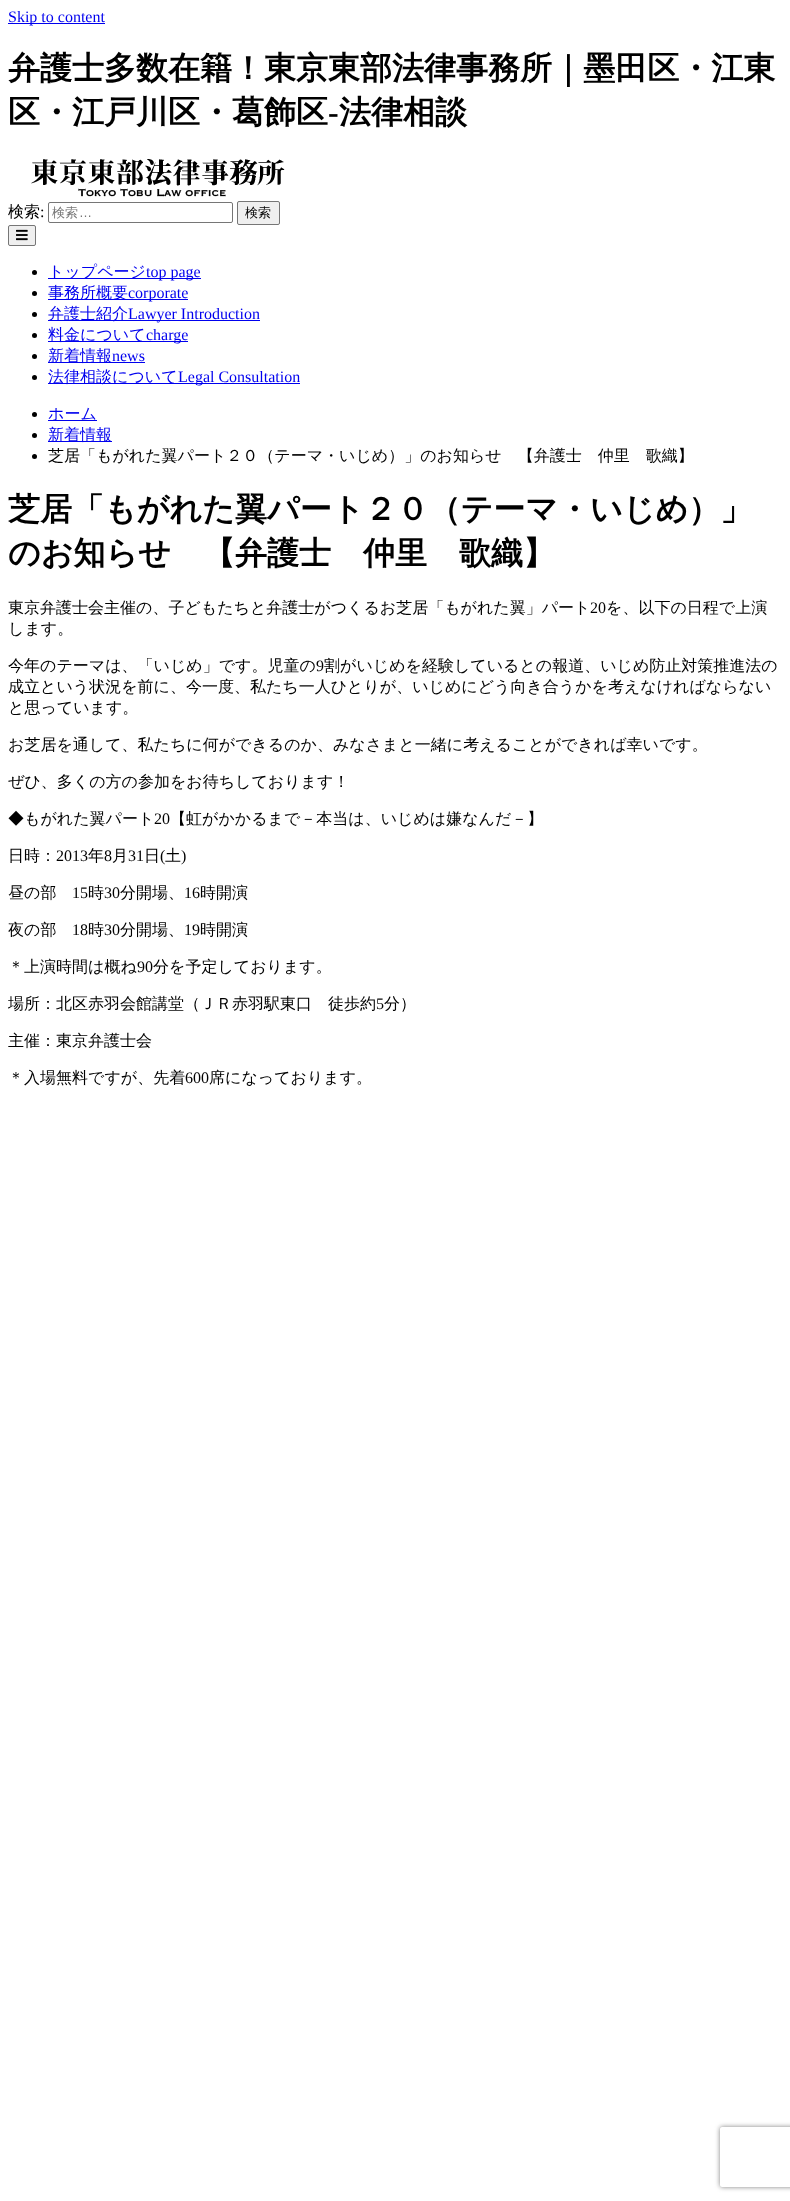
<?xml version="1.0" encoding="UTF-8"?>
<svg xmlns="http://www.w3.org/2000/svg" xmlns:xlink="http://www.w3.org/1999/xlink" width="790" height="2201">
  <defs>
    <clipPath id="clip1"><path d="M 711 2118 h 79 v 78 h -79 z m 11 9 h 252 c 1 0 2 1 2 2 v 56 c 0 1 -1 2 -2 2 h -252 c -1 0 -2 -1 -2 -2 v -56 c 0 -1 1 -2 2 -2 z" clip-rule="evenodd" /></clipPath>
  </defs>
  <rect width="100%" height="100%" fill="#ffffff" />
  <rect x="8" y="23" width="97" height="1" fill="#0000ee" />
  <image x="31" y="159" width="254" height="38" xlink:href="image1.png" />
  <rect x="48.5" y="202.5" width="184" height="20" rx="1.5" fill="none" stroke="#767676" />
  <rect x="237.5" y="201.5" width="42" height="23" rx="1.5" fill="#efefef" stroke="#767676" />
  <rect x="8.5" y="225.5" width="27" height="20" rx="1.5" fill="#efefef" stroke="#767676" />
  <image x="16" y="229" width="12" height="12" xlink:href="image2.png" />
  <circle cx="34.5" cy="272.5" r="2.5" fill="#000000" />
  <rect x="48" y="278" width="153" height="1" fill="#0000ee" />
  <circle cx="34.5" cy="293.5" r="2.5" fill="#000000" />
  <rect x="48" y="299" width="140" height="1" fill="#0000ee" />
  <circle cx="34.5" cy="314.5" r="2.5" fill="#000000" />
  <rect x="48" y="320" width="212" height="1" fill="#0000ee" />
  <circle cx="34.5" cy="335.5" r="2.5" fill="#000000" />
  <rect x="48" y="341" width="140" height="1" fill="#0000ee" />
  <circle cx="34.5" cy="356.5" r="2.5" fill="#000000" />
  <rect x="48" y="362" width="97" height="1" fill="#0000ee" />
  <circle cx="34.5" cy="377.5" r="2.5" fill="#000000" />
  <rect x="48" y="383" width="252" height="1" fill="#0000ee" />
  <circle cx="34.5" cy="414.5" r="2.5" fill="#000000" />
  <rect x="48" y="420" width="49" height="1" fill="#0000ee" />
  <circle cx="34.5" cy="435.5" r="2.5" fill="#000000" />
  <rect x="48" y="441" width="64" height="1" fill="#0000ee" />
  <circle cx="34.5" cy="456.5" r="2.5" fill="#000000" />
  <g clip-path="url(#clip1)">
    <rect x="720" y="2127" width="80" height="60" rx="2" fill="#808080" filter="blur(2.5px)" />
  </g>
  <text x="8" y="22" style="font-family: Liberation Serif; font-size: 16px; fill: #0000ee">Skip to content</text>
  <text x="8" y="79" style="font-family: WenQuanYi Zen Hei; font-size: 32px; font-weight: bold; fill: #000000">弁護士多数在籍！東京東部法律事務所｜墨田区・江東</text>
  <text x="8" y="123" style="font-family: WenQuanYi Zen Hei; font-size: 32px; font-weight: bold; fill: #000000">区・江戸川区・葛飾区</text>
  <text x="328" y="123" style="font-family: Liberation Serif; font-size: 32px; font-weight: bold; fill: #000000">-</text>
  <text x="339" y="123" style="font-family: WenQuanYi Zen Hei; font-size: 32px; font-weight: bold; fill: #000000">法律相談</text>
  <text x="8" y="217" style="font-family: WenQuanYi Zen Hei; font-size: 16px; font-weight: 500; fill: #000000">検索</text>
  <text x="40" y="217" style="font-family: Liberation Serif; font-size: 16px; fill: #000000">:</text>
  <text x="52" y="217" style="font-family: WenQuanYi Zen Hei; font-size: 13px; font-weight: 500; fill: #757575">検索</text>
  <text x="79" y="217" style="font-family: Liberation Sans; font-size: 13px; fill: #757575">…</text>
  <text x="245" y="217" style="font-family: WenQuanYi Zen Hei; font-size: 13px; font-weight: 500; fill: #000000">検索</text>
  <text x="48" y="277" style="font-family: WenQuanYi Zen Hei; font-size: 16px; font-weight: 500; fill: #0000ee">トップページ</text>
  <text x="146" y="277" style="font-family: Liberation Serif; font-size: 16px; fill: #0000ee">top page</text>
  <text x="48" y="298" style="font-family: WenQuanYi Zen Hei; font-size: 16px; font-weight: 500; fill: #0000ee">事務所概要</text>
  <text x="128" y="298" style="font-family: Liberation Serif; font-size: 16px; fill: #0000ee">corporate</text>
  <text x="48" y="319" style="font-family: WenQuanYi Zen Hei; font-size: 16px; font-weight: 500; fill: #0000ee">弁護士紹介</text>
  <text x="128" y="319" style="font-family: Liberation Serif; font-size: 16px; fill: #0000ee">Lawyer Introduction</text>
  <text x="48" y="340" style="font-family: WenQuanYi Zen Hei; font-size: 16px; font-weight: 500; fill: #0000ee">料金について</text>
  <text x="146" y="340" style="font-family: Liberation Serif; font-size: 16px; fill: #0000ee">charge</text>
  <text x="48" y="361" style="font-family: WenQuanYi Zen Hei; font-size: 16px; font-weight: 500; fill: #0000ee">新着情報</text>
  <text x="112" y="361" style="font-family: Liberation Serif; font-size: 16px; fill: #0000ee">news</text>
  <text x="48" y="382" style="font-family: WenQuanYi Zen Hei; font-size: 16px; font-weight: 500; fill: #0000ee">法律相談について</text>
  <text x="178" y="382" style="font-family: Liberation Serif; font-size: 16px; fill: #0000ee">Legal Consultation</text>
  <text x="48" y="419" style="font-family: WenQuanYi Zen Hei; font-size: 16px; font-weight: 500; fill: #0000ee">ホーム</text>
  <text x="48" y="440" style="font-family: WenQuanYi Zen Hei; font-size: 16px; font-weight: 500; fill: #0000ee">新着情報</text>
  <text x="48" y="461" style="font-family: WenQuanYi Zen Hei; font-size: 16px; font-weight: 500; fill: #000000">芝居「もがれた翼パート２０（テーマ・いじめ）」のお知らせ　【弁護士　仲里　歌織】</text>
  <text x="8" y="520" style="font-family: WenQuanYi Zen Hei; font-size: 32px; font-weight: bold; fill: #000000">芝居「もがれた翼パート２０（テーマ・いじめ）」</text>
  <text x="8" y="564" style="font-family: WenQuanYi Zen Hei; font-size: 32px; font-weight: bold; fill: #000000">のお知らせ　【弁護士　仲里　歌織】</text>
  <text x="8" y="613" style="font-family: WenQuanYi Zen Hei; font-size: 16px; font-weight: 500; fill: #000000">東京弁護士会主催の、子どもたちと弁護士がつくるお芝居「もがれた翼」パート</text>
  <text x="590" y="613" style="font-family: Liberation Serif; font-size: 16px; fill: #000000">20</text>
  <text x="606" y="613" style="font-family: WenQuanYi Zen Hei; font-size: 16px; font-weight: 500; fill: #000000">を、以下の日程で上演</text>
  <text x="8" y="634" style="font-family: WenQuanYi Zen Hei; font-size: 16px; font-weight: 500; fill: #000000">します。</text>
  <text x="8" y="671" style="font-family: WenQuanYi Zen Hei; font-size: 16px; font-weight: 500; fill: #000000">今年のテーマは、「いじめ」です。児童の</text>
  <text x="316" y="671" style="font-family: Liberation Serif; font-size: 16px; fill: #000000">9</text>
  <text x="324" y="671" style="font-family: WenQuanYi Zen Hei; font-size: 16px; font-weight: 500; fill: #000000">割がいじめを経験しているとの報道、いじめ防止対策推進法の</text>
  <text x="8" y="692" style="font-family: WenQuanYi Zen Hei; font-size: 16px; font-weight: 500; fill: #000000">成立という状況を前に、今一度、私たち一人ひとりが、いじめにどう向き合うかを考えなければならない</text>
  <text x="8" y="713" style="font-family: WenQuanYi Zen Hei; font-size: 16px; font-weight: 500; fill: #000000">と思っています。</text>
  <text x="8" y="750" style="font-family: WenQuanYi Zen Hei; font-size: 16px; font-weight: 500; fill: #000000">お芝居を通して、私たちに何ができるのか、みなさまと一緒に考えることができれば幸いです。</text>
  <text x="8" y="787" style="font-family: WenQuanYi Zen Hei; font-size: 16px; font-weight: 500; fill: #000000">ぜひ、多くの方の参加をお待ちしております！</text>
  <text x="8" y="824" style="font-family: WenQuanYi Zen Hei; font-size: 16px; font-weight: 500; fill: #000000">◆もがれた翼パート</text>
  <text x="154" y="824" style="font-family: Liberation Serif; font-size: 16px; fill: #000000">20</text>
  <text x="170" y="824" style="font-family: WenQuanYi Zen Hei; font-size: 16px; font-weight: 500; fill: #000000">【虹がかかるまで－本当は、いじめは嫌なんだ－】</text>
  <text x="8" y="861" style="font-family: WenQuanYi Zen Hei; font-size: 16px; font-weight: 500; fill: #000000">日時：</text>
  <text x="56" y="861" style="font-family: Liberation Serif; font-size: 16px; fill: #000000">2013</text>
  <text x="88" y="861" style="font-family: WenQuanYi Zen Hei; font-size: 16px; font-weight: 500; fill: #000000">年</text>
  <text x="104" y="861" style="font-family: Liberation Serif; font-size: 16px; fill: #000000">8</text>
  <text x="112" y="861" style="font-family: WenQuanYi Zen Hei; font-size: 16px; font-weight: 500; fill: #000000">月</text>
  <text x="128" y="861" style="font-family: Liberation Serif; font-size: 16px; fill: #000000">31</text>
  <text x="144" y="861" style="font-family: WenQuanYi Zen Hei; font-size: 16px; font-weight: 500; fill: #000000">日</text>
  <text x="160" y="861" style="font-family: Liberation Serif; font-size: 16px; fill: #000000">(</text>
  <text x="165" y="861" style="font-family: WenQuanYi Zen Hei; font-size: 16px; font-weight: 500; fill: #000000">土</text>
  <text x="181" y="861" style="font-family: Liberation Serif; font-size: 16px; fill: #000000">)</text>
  <text x="8" y="898" style="font-family: WenQuanYi Zen Hei; font-size: 16px; font-weight: 500; fill: #000000">昼の部</text>
  <text x="72" y="898" style="font-family: Liberation Serif; font-size: 16px; fill: #000000">15</text>
  <text x="88" y="898" style="font-family: WenQuanYi Zen Hei; font-size: 16px; font-weight: 500; fill: #000000">時</text>
  <text x="104" y="898" style="font-family: Liberation Serif; font-size: 16px; fill: #000000">30</text>
  <text x="120" y="898" style="font-family: WenQuanYi Zen Hei; font-size: 16px; font-weight: 500; fill: #000000">分開場、</text>
  <text x="184" y="898" style="font-family: Liberation Serif; font-size: 16px; fill: #000000">16</text>
  <text x="200" y="898" style="font-family: WenQuanYi Zen Hei; font-size: 16px; font-weight: 500; fill: #000000">時開演</text>
  <text x="8" y="935" style="font-family: WenQuanYi Zen Hei; font-size: 16px; font-weight: 500; fill: #000000">夜の部</text>
  <text x="72" y="935" style="font-family: Liberation Serif; font-size: 16px; fill: #000000">18</text>
  <text x="88" y="935" style="font-family: WenQuanYi Zen Hei; font-size: 16px; font-weight: 500; fill: #000000">時</text>
  <text x="104" y="935" style="font-family: Liberation Serif; font-size: 16px; fill: #000000">30</text>
  <text x="120" y="935" style="font-family: WenQuanYi Zen Hei; font-size: 16px; font-weight: 500; fill: #000000">分開場、</text>
  <text x="184" y="935" style="font-family: Liberation Serif; font-size: 16px; fill: #000000">19</text>
  <text x="200" y="935" style="font-family: WenQuanYi Zen Hei; font-size: 16px; font-weight: 500; fill: #000000">時開演</text>
  <text x="8" y="972" style="font-family: WenQuanYi Zen Hei; font-size: 16px; font-weight: 500; fill: #000000">＊上演時間は概ね</text>
  <text x="137" y="972" style="font-family: Liberation Serif; font-size: 16px; fill: #000000">90</text>
  <text x="153" y="972" style="font-family: WenQuanYi Zen Hei; font-size: 16px; font-weight: 500; fill: #000000">分を予定しております。</text>
  <text x="8" y="1009" style="font-family: WenQuanYi Zen Hei; font-size: 16px; font-weight: 500; fill: #000000">場所：北区赤羽会館講堂（ＪＲ赤羽駅東口　徒歩約</text>
  <text x="376" y="1009" style="font-family: Liberation Serif; font-size: 16px; fill: #000000">5</text>
  <text x="384" y="1009" style="font-family: WenQuanYi Zen Hei; font-size: 16px; font-weight: 500; fill: #000000">分）</text>
  <text x="8" y="1046" style="font-family: WenQuanYi Zen Hei; font-size: 16px; font-weight: 500; fill: #000000">主催：東京弁護士会</text>
  <text x="8" y="1083" style="font-family: WenQuanYi Zen Hei; font-size: 16px; font-weight: 500; fill: #000000">＊入場無料ですが、先着</text>
  <text x="185" y="1083" style="font-family: Liberation Serif; font-size: 16px; fill: #000000">600</text>
  <text x="209" y="1083" style="font-family: WenQuanYi Zen Hei; font-size: 16px; font-weight: 500; fill: #000000">席になっております。</text>
</svg>
